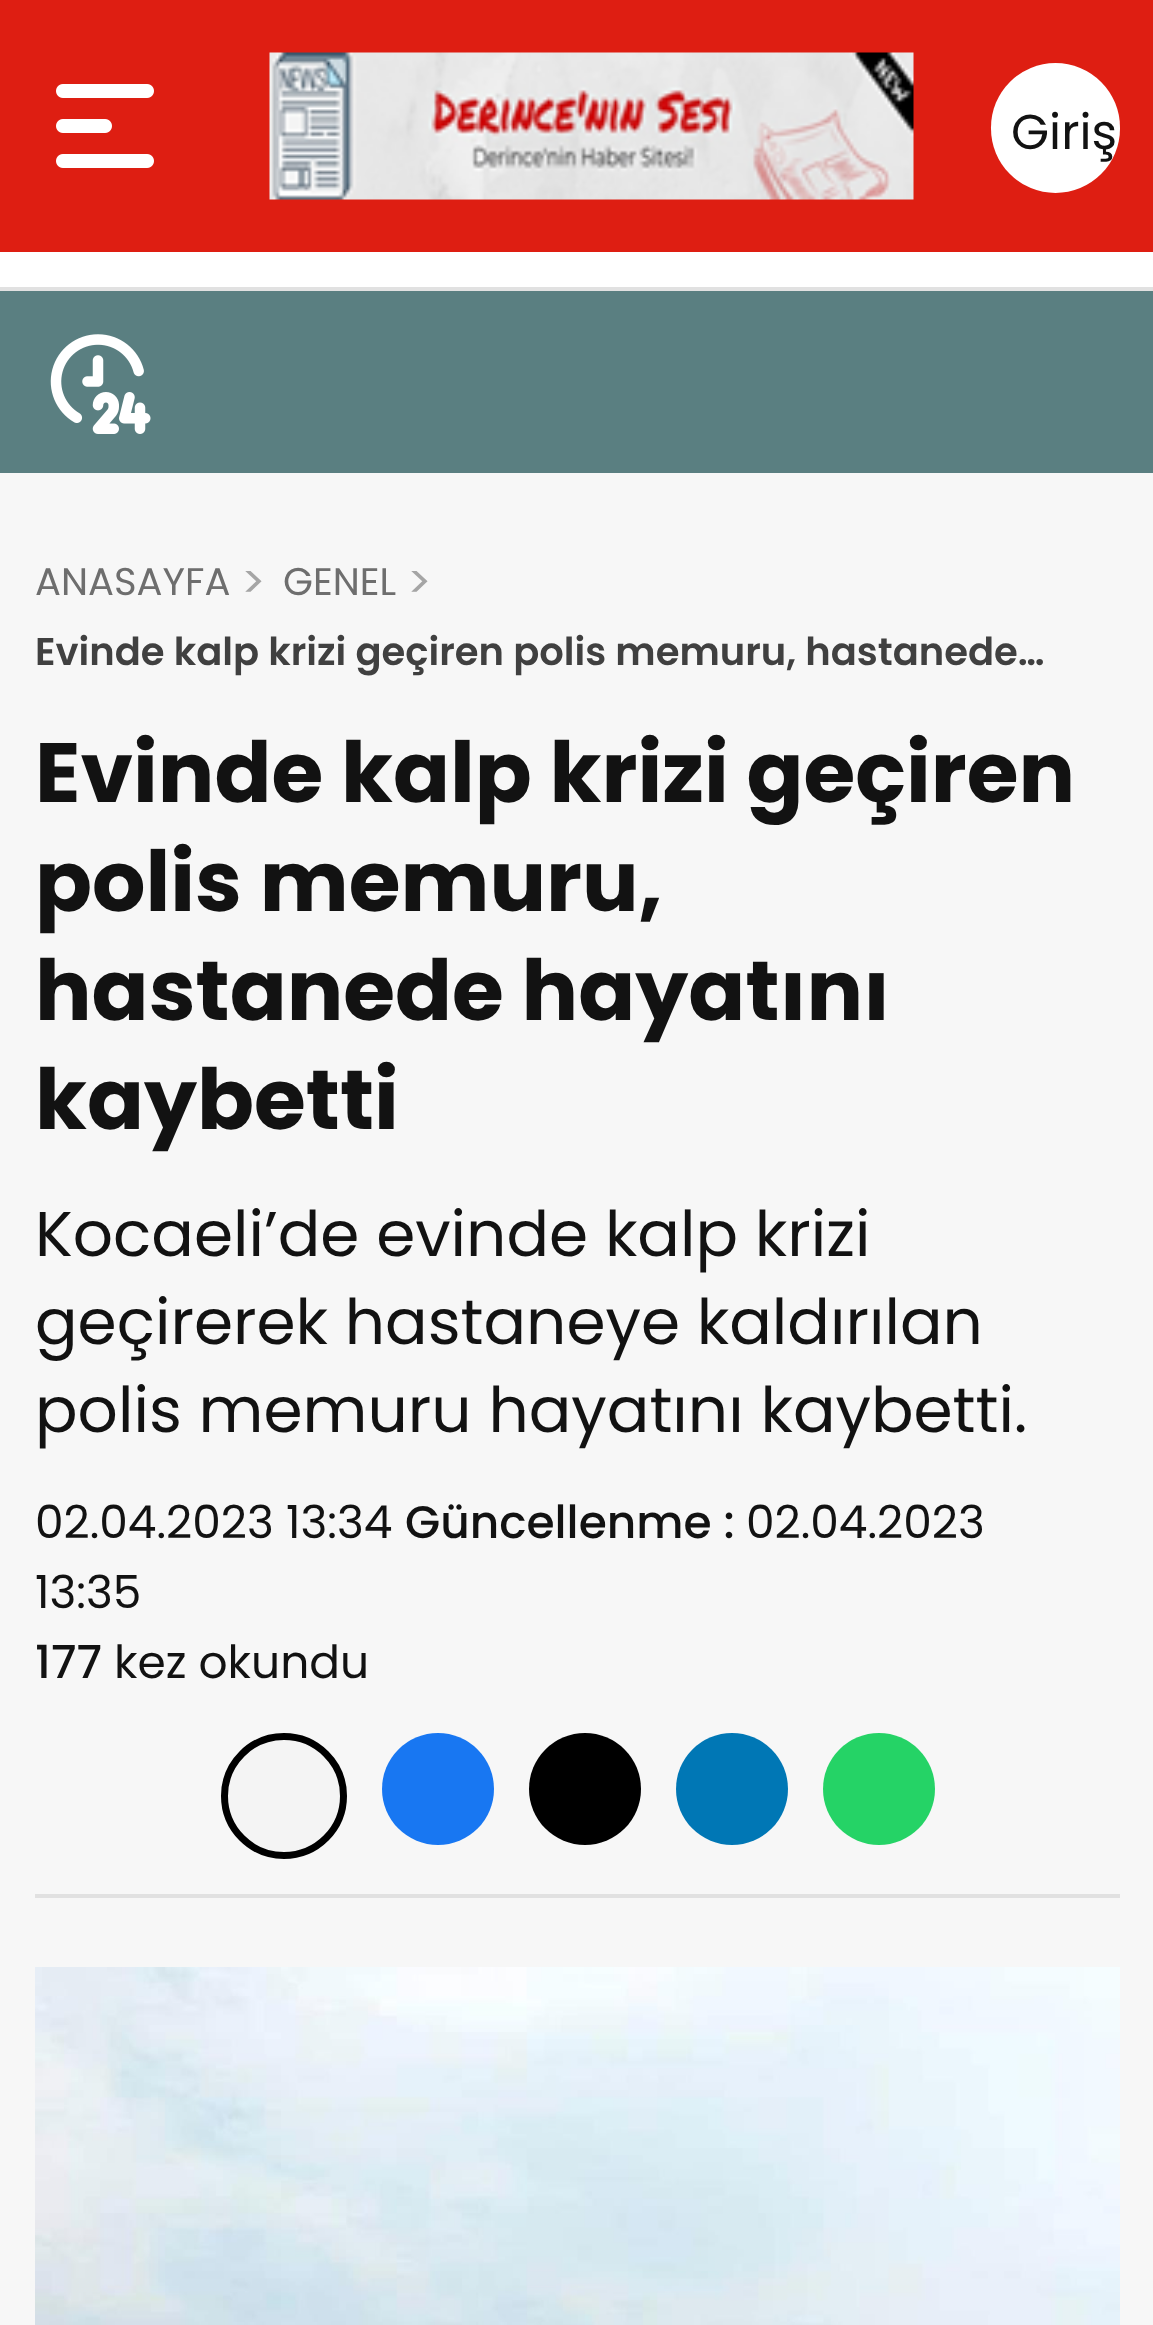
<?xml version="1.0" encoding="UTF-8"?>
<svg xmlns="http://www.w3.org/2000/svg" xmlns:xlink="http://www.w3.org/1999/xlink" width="1153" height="2325">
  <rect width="100%" height="100%" fill="#f7f7f7" />
  <rect width="1153" height="252" fill="#de1e12" />
  <image x="56" y="84" width="98" height="84" xlink:href="image1.png" />
  <image x="269" y="52" width="645" height="148" xlink:href="image2.png" />
  <rect x="991" y="63" width="129" height="130" rx="64.5" fill="#ffffff" />
  <rect y="252" width="1153" height="35" fill="#ffffff" />
  <rect y="287" width="1153" height="4" fill="#e1e1e1" />
  <rect y="291" width="1153" height="182" fill="#5a7f81" />
  <image x="50" y="334" width="101" height="100" xlink:href="image3.png" />
  <rect x="35" y="1894" width="1085" height="4" fill="#e1e1e1" />
  <circle cx="284" cy="1796" r="59.5" fill="#f4f4f4" stroke="#000000" stroke-width="7" />
  <circle cx="438" cy="1789" r="56" fill="#1877f2" />
  <circle cx="585" cy="1789" r="56" fill="#000000" />
  <circle cx="732" cy="1789" r="56" fill="#0077b5" />
  <circle cx="879" cy="1789" r="56" fill="#25d366" />
  <image x="35" y="1967" width="1085" height="358" xlink:href="image4.png" />
  <text x="1011" y="149" style="font-family: Poppins; font-size: 49px; fill: #121212">Giriş</text>
  <text x="35" y="595" style="font-family: Poppins; font-size: 38.5px; fill: #6e6e6e">ANASAYFA</text>
  <text x="241" y="598" style="font-family: Poppins; font-size: 45.5px; fill: #a5a5a5">&gt;</text>
  <text x="283" y="595" style="font-family: Poppins; font-size: 38.5px; fill: #6e6e6e">GENEL</text>
  <text x="407" y="598" style="font-family: Poppins; font-size: 45.5px; fill: #a5a5a5">&gt;</text>
  <text x="35" y="665" style="font-family: Poppins; font-size: 38.5px; font-weight: 600; fill: #404040">Evinde kalp krizi geçiren polis memuru, hastanede…</text>
  <text x="35" y="802" style="font-family: Poppins; font-size: 84px; font-weight: bold; fill: #121212">Evinde kalp krizi geçiren</text>
  <text x="35" y="911" style="font-family: Poppins; font-size: 84px; font-weight: bold; fill: #121212">polis memuru,</text>
  <text x="35" y="1020" style="font-family: Poppins; font-size: 84px; font-weight: bold; fill: #121212">hastanede hayatını</text>
  <text x="35" y="1129" style="font-family: Poppins; font-size: 84px; font-weight: bold; fill: #121212">kaybetti</text>
  <text x="35" y="1256" style="font-family: Poppins; font-size: 63px; fill: #121212">Kocaeli’de evinde kalp krizi</text>
  <text x="35" y="1344" style="font-family: Poppins; font-size: 63px; fill: #121212">geçirerek hastaneye kaldırılan</text>
  <text x="35" y="1432" style="font-family: Poppins; font-size: 63px; fill: #121212">polis memuru hayatını kaybetti.</text>
  <text x="35" y="1538" style="font-family: Poppins; font-size: 45.5px; fill: #121212">02.04.2023 13:34</text>
  <text x="405" y="1538" style="font-family: Poppins; font-size: 45.5px; font-weight: 500; fill: #121212">Güncellenme :</text>
  <text x="746" y="1538" style="font-family: Poppins; font-size: 45.5px; fill: #121212">02.04.2023</text>
  <text x="35" y="1608" style="font-family: Poppins; font-size: 45.5px; fill: #121212">13:35</text>
  <text x="35" y="1678" style="font-family: Poppins; font-size: 45.5px; font-weight: 500; fill: #121212">177</text>
  <text x="114" y="1678" style="font-family: Poppins; font-size: 45.5px; fill: #121212">kez okundu</text>
</svg>
